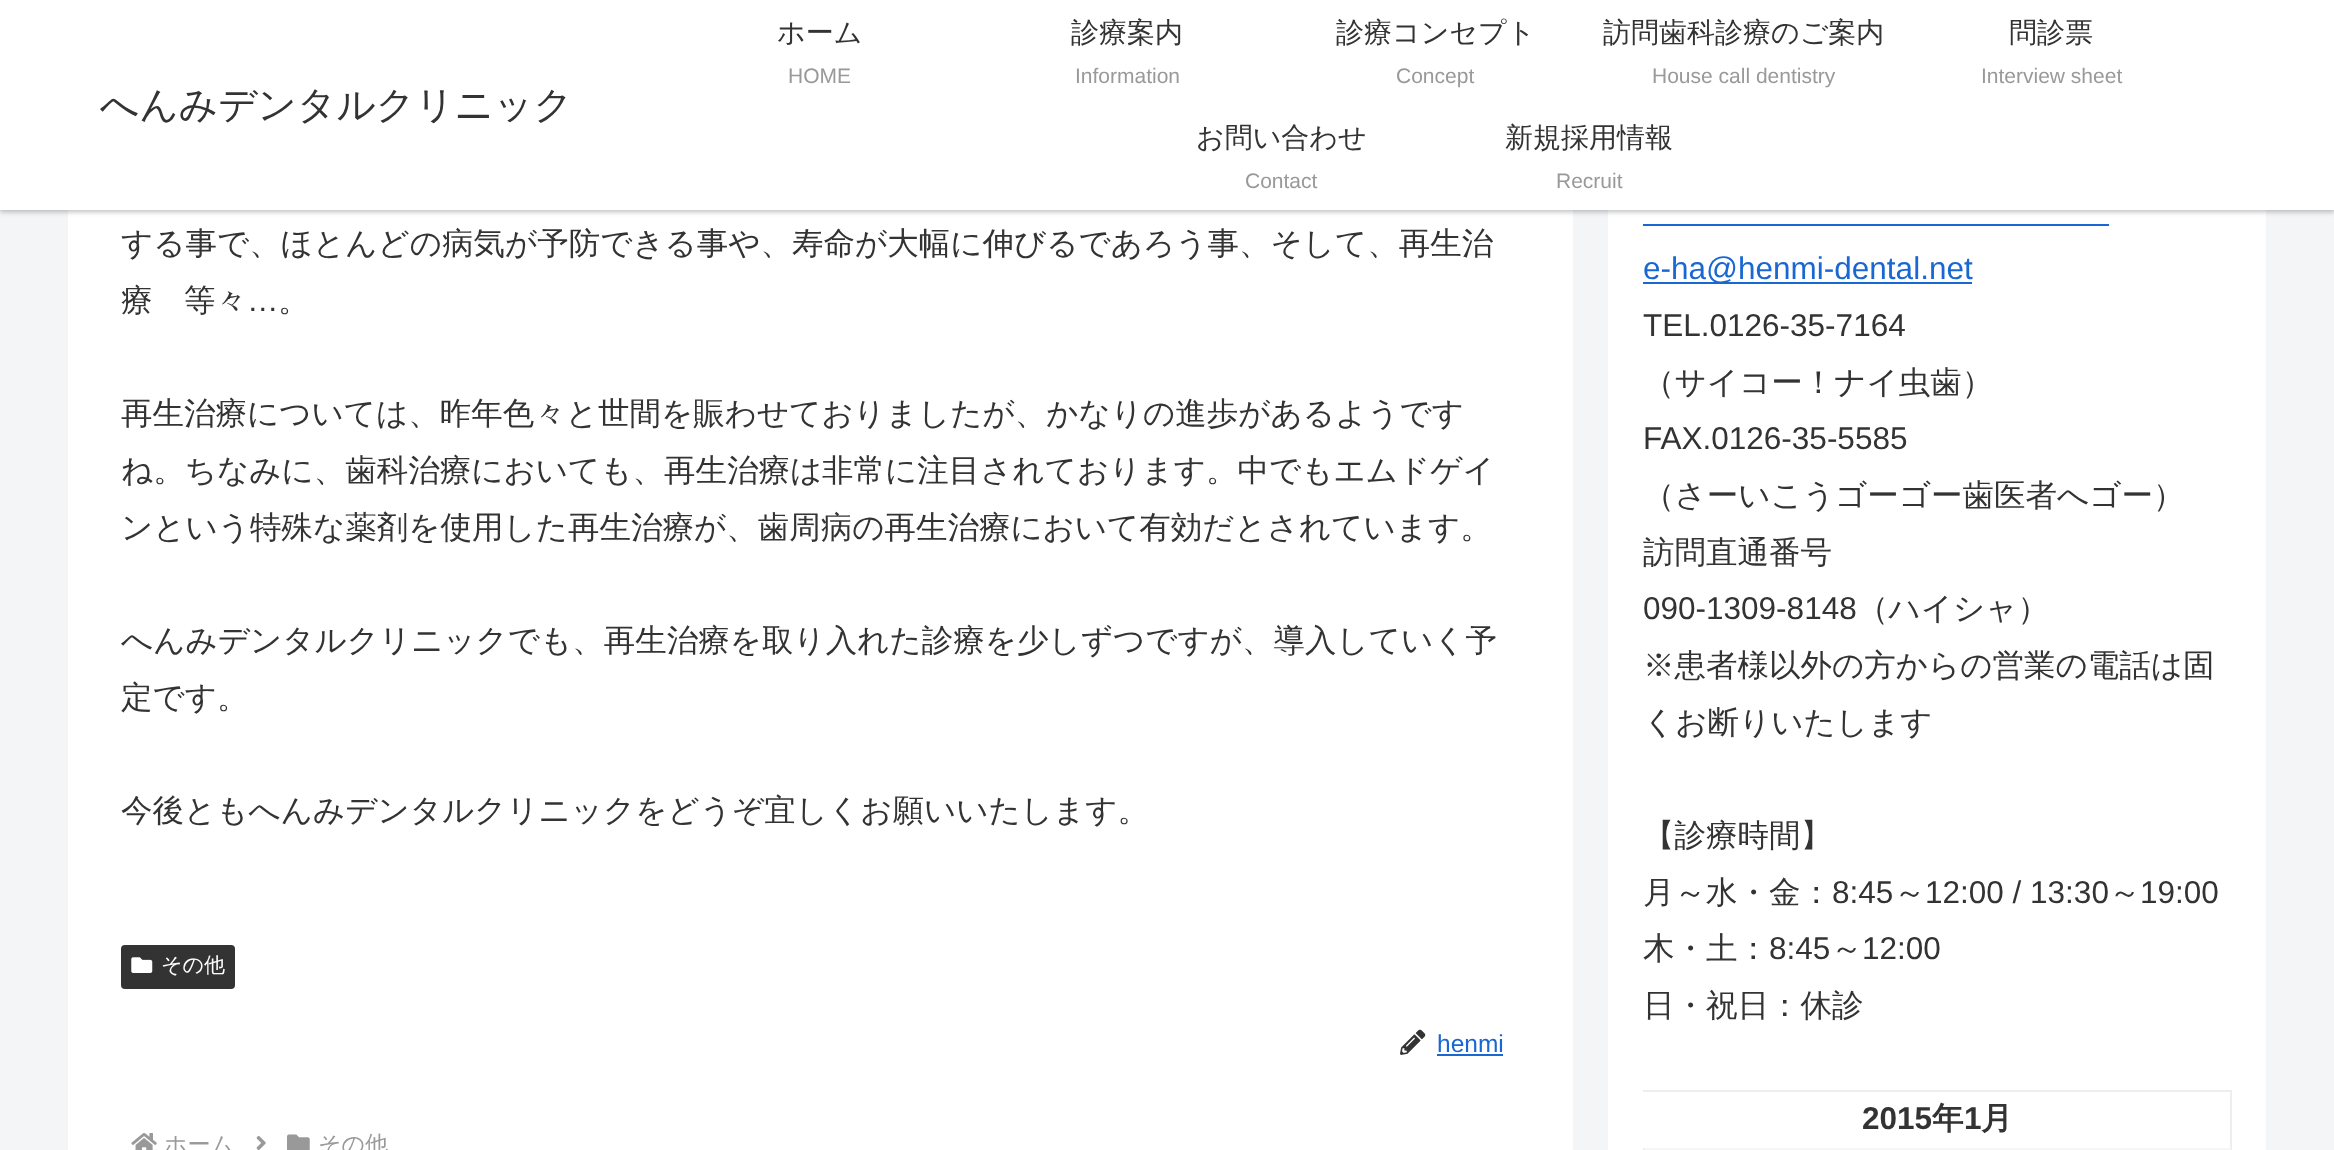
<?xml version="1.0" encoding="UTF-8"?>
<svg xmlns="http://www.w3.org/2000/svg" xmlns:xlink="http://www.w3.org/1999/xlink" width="2334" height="1150">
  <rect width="100%" height="100%" fill="#f4f5f7" />
  <rect x="68" y="210" width="1505" height="940" fill="#ffffff" />
  <rect x="1608" y="210" width="658" height="940" fill="#ffffff" />
  <rect y="2" width="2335" height="210" fill="#000000" fill-opacity="0.25" filter="blur(2.5px)" />
  <rect width="2334" height="210" fill="#ffffff" />
  <rect x="121" y="945" width="114" height="44" rx="4" fill="#333333" />
  <image x="131" y="957" width="22" height="16" xlink:href="image1.png" />
  <image x="1400" y="1029" width="26" height="26" xlink:href="image2.png" />
  <rect x="1437" y="1054" width="66" height="2" fill="#1967d2" />
  <image x="131" y="1133" width="26" height="17" xlink:href="image3.png" />
  <image x="256" y="1135" width="10" height="15" xlink:href="image4.png" />
  <image x="287" y="1134" width="23" height="16" xlink:href="image5.png" />
  <rect x="1643" y="224" width="466" height="2" fill="#1967d2" />
  <rect x="1643" y="282" width="329" height="2" fill="#1967d2" />
  <rect x="1643" y="1090" width="588" height="2" fill="#eeeeee" />
  <rect x="2230" y="1090" width="2" height="60" fill="#eeeeee" />
  <rect x="1643" y="1148" width="2" height="2" fill="#eeeeee" />
  <rect x="1645" y="1148" width="586" height="2" fill="#f5f6f7" />
  <text x="100" y="118" style="font-family: WenQuanYi Zen Hei; font-size: 38.5px; font-weight: 500; fill: #333333">へんみデンタルクリニック</text>
  <text x="777" y="42" style="font-family: WenQuanYi Zen Hei; font-size: 28px; font-weight: 500; fill: #333333">ホーム</text>
  <text x="788" y="83" style="font-family: Liberation Sans; font-size: 21px; fill: #999999">HOME</text>
  <text x="1071" y="42" style="font-family: WenQuanYi Zen Hei; font-size: 28px; font-weight: 500; fill: #333333">診療案内</text>
  <text x="1075" y="83" style="font-family: Liberation Sans; font-size: 21px; fill: #999999">Information</text>
  <text x="1336" y="42" style="font-family: WenQuanYi Zen Hei; font-size: 28px; font-weight: 500; fill: #333333">診療コンセプト</text>
  <text x="1396" y="83" style="font-family: Liberation Sans; font-size: 21px; fill: #999999">Concept</text>
  <text x="1603" y="42" style="font-family: WenQuanYi Zen Hei; font-size: 28px; font-weight: 500; fill: #333333">訪問歯科診療のご案内</text>
  <text x="1652" y="83" style="font-family: Liberation Sans; font-size: 21px; fill: #999999">House call dentistry</text>
  <text x="2009" y="42" style="font-family: WenQuanYi Zen Hei; font-size: 28px; font-weight: 500; fill: #333333">問診票</text>
  <text x="1981" y="83" style="font-family: Liberation Sans; font-size: 21px; fill: #999999">Interview sheet</text>
  <text x="1196" y="147" style="font-family: WenQuanYi Zen Hei; font-size: 28px; font-weight: 500; fill: #333333">お問い合わせ</text>
  <text x="1245" y="188" style="font-family: Liberation Sans; font-size: 21px; fill: #999999">Contact</text>
  <text x="1505" y="147" style="font-family: WenQuanYi Zen Hei; font-size: 28px; font-weight: 500; fill: #333333">新規採用情報</text>
  <text x="1556" y="188" style="font-family: Liberation Sans; font-size: 21px; fill: #999999">Recruit</text>
  <text x="121" y="254" style="font-family: WenQuanYi Zen Hei; font-size: 31.5px; font-weight: 500; fill: #333333">する事で、ほとんどの病気が予防できる事や、寿命が大幅に伸びるであろう事、そして、再生治</text>
  <text x="121" y="311" style="font-family: WenQuanYi Zen Hei; font-size: 31.5px; font-weight: 500; fill: #333333">療　等々</text>
  <text x="247" y="311" style="font-family: Liberation Sans; font-size: 31.5px; fill: #333333">…</text>
  <text x="278" y="311" style="font-family: WenQuanYi Zen Hei; font-size: 31.5px; font-weight: 500; fill: #333333">。</text>
  <text x="121" y="424" style="font-family: WenQuanYi Zen Hei; font-size: 31.5px; font-weight: 500; fill: #333333">再生治療については、昨年色々と世間を賑わせておりましたが、かなりの進歩があるようです</text>
  <text x="121" y="481" style="font-family: WenQuanYi Zen Hei; font-size: 31.5px; font-weight: 500; fill: #333333">ね。ちなみに、歯科治療においても、再生治療は非常に注目されております。中でもエムドゲイ</text>
  <text x="121" y="538" style="font-family: WenQuanYi Zen Hei; font-size: 31.5px; font-weight: 500; fill: #333333">ンという特殊な薬剤を使用した再生治療が、歯周病の再生治療において有効だとされています。</text>
  <text x="121" y="651" style="font-family: WenQuanYi Zen Hei; font-size: 31.5px; font-weight: 500; fill: #333333">へんみデンタルクリニックでも、再生治療を取り入れた診療を少しずつですが、導入していく予</text>
  <text x="121" y="708" style="font-family: WenQuanYi Zen Hei; font-size: 31.5px; font-weight: 500; fill: #333333">定です。</text>
  <text x="121" y="821" style="font-family: WenQuanYi Zen Hei; font-size: 31.5px; font-weight: 500; fill: #333333">今後ともへんみデンタルクリニックをどうぞ宜しくお願いいたします。</text>
  <text x="161" y="972" style="font-family: WenQuanYi Zen Hei; font-size: 21px; font-weight: 500; fill: #ffffff">その他</text>
  <text x="1437" y="1052" style="font-family: Liberation Sans; font-size: 24.5px; fill: #1967d2">henmi</text>
  <text x="164" y="1152" style="font-family: WenQuanYi Zen Hei; font-size: 23px; font-weight: 500; fill: #999999">ホーム</text>
  <text x="318" y="1152" style="font-family: WenQuanYi Zen Hei; font-size: 23px; font-weight: 500; fill: #999999">その他</text>
  <text x="1643" y="279" style="font-family: Liberation Sans; font-size: 31.5px; fill: #1967d2">e-ha@henmi-dental.net</text>
  <text x="1643" y="336" style="font-family: Liberation Sans; font-size: 31.5px; fill: #333333">TEL.0126-35-7164</text>
  <text x="1643" y="393" style="font-family: WenQuanYi Zen Hei; font-size: 31.5px; font-weight: 500; fill: #333333">（サイコー！ナイ虫歯）</text>
  <text x="1643" y="449" style="font-family: Liberation Sans; font-size: 31.5px; fill: #333333">FAX.0126-35-5585</text>
  <text x="1643" y="506" style="font-family: WenQuanYi Zen Hei; font-size: 31.5px; font-weight: 500; fill: #333333">（さーいこうゴーゴー歯医者へゴー）</text>
  <text x="1643" y="563" style="font-family: WenQuanYi Zen Hei; font-size: 31.5px; font-weight: 500; fill: #333333">訪問直通番号</text>
  <text x="1643" y="619" style="font-family: Liberation Sans; font-size: 31.5px; fill: #333333">090-1309-8148</text>
  <text x="1857" y="619" style="font-family: WenQuanYi Zen Hei; font-size: 31.5px; font-weight: 500; fill: #333333">（ハイシャ）</text>
  <text x="1643" y="676" style="font-family: WenQuanYi Zen Hei; font-size: 31.5px; font-weight: 500; fill: #333333">※患者様以外の方からの営業の電話は固</text>
  <text x="1643" y="733" style="font-family: WenQuanYi Zen Hei; font-size: 31.5px; font-weight: 500; fill: #333333">くお断りいたします</text>
  <text x="1643" y="846" style="font-family: WenQuanYi Zen Hei; font-size: 31.5px; font-weight: 500; fill: #333333">【診療時間】</text>
  <text x="1643" y="903" style="font-family: WenQuanYi Zen Hei; font-size: 31.5px; font-weight: 500; fill: #333333">月～水・金：</text>
  <text x="1832" y="903" style="font-family: Liberation Sans; font-size: 31.5px; fill: #333333">8:45</text>
  <text x="1894" y="903" style="font-family: WenQuanYi Zen Hei; font-size: 31.5px; font-weight: 500; fill: #333333">～</text>
  <text x="1925" y="903" style="font-family: Liberation Sans; font-size: 31.5px; fill: #333333">12:00 / 13:30</text>
  <text x="2109" y="903" style="font-family: WenQuanYi Zen Hei; font-size: 31.5px; font-weight: 500; fill: #333333">～</text>
  <text x="2140" y="903" style="font-family: Liberation Sans; font-size: 31.5px; fill: #333333">19:00</text>
  <text x="1643" y="959" style="font-family: WenQuanYi Zen Hei; font-size: 31.5px; font-weight: 500; fill: #333333">木・土：</text>
  <text x="1769" y="959" style="font-family: Liberation Sans; font-size: 31.5px; fill: #333333">8:45</text>
  <text x="1831" y="959" style="font-family: WenQuanYi Zen Hei; font-size: 31.5px; font-weight: 500; fill: #333333">～</text>
  <text x="1862" y="959" style="font-family: Liberation Sans; font-size: 31.5px; fill: #333333">12:00</text>
  <text x="1643" y="1016" style="font-family: WenQuanYi Zen Hei; font-size: 31.5px; font-weight: 500; fill: #333333">日・祝日：休診</text>
  <text x="1862" y="1129" style="font-family: Liberation Sans; font-size: 31.5px; font-weight: bold; fill: #333333">2015</text>
  <text x="1932" y="1129" style="font-family: WenQuanYi Zen Hei; font-size: 31.5px; font-weight: bold; fill: #333333">年</text>
  <text x="1964" y="1129" style="font-family: Liberation Sans; font-size: 31.5px; font-weight: bold; fill: #333333">1</text>
  <text x="1981" y="1129" style="font-family: WenQuanYi Zen Hei; font-size: 31.5px; font-weight: bold; fill: #333333">月</text>
</svg>
